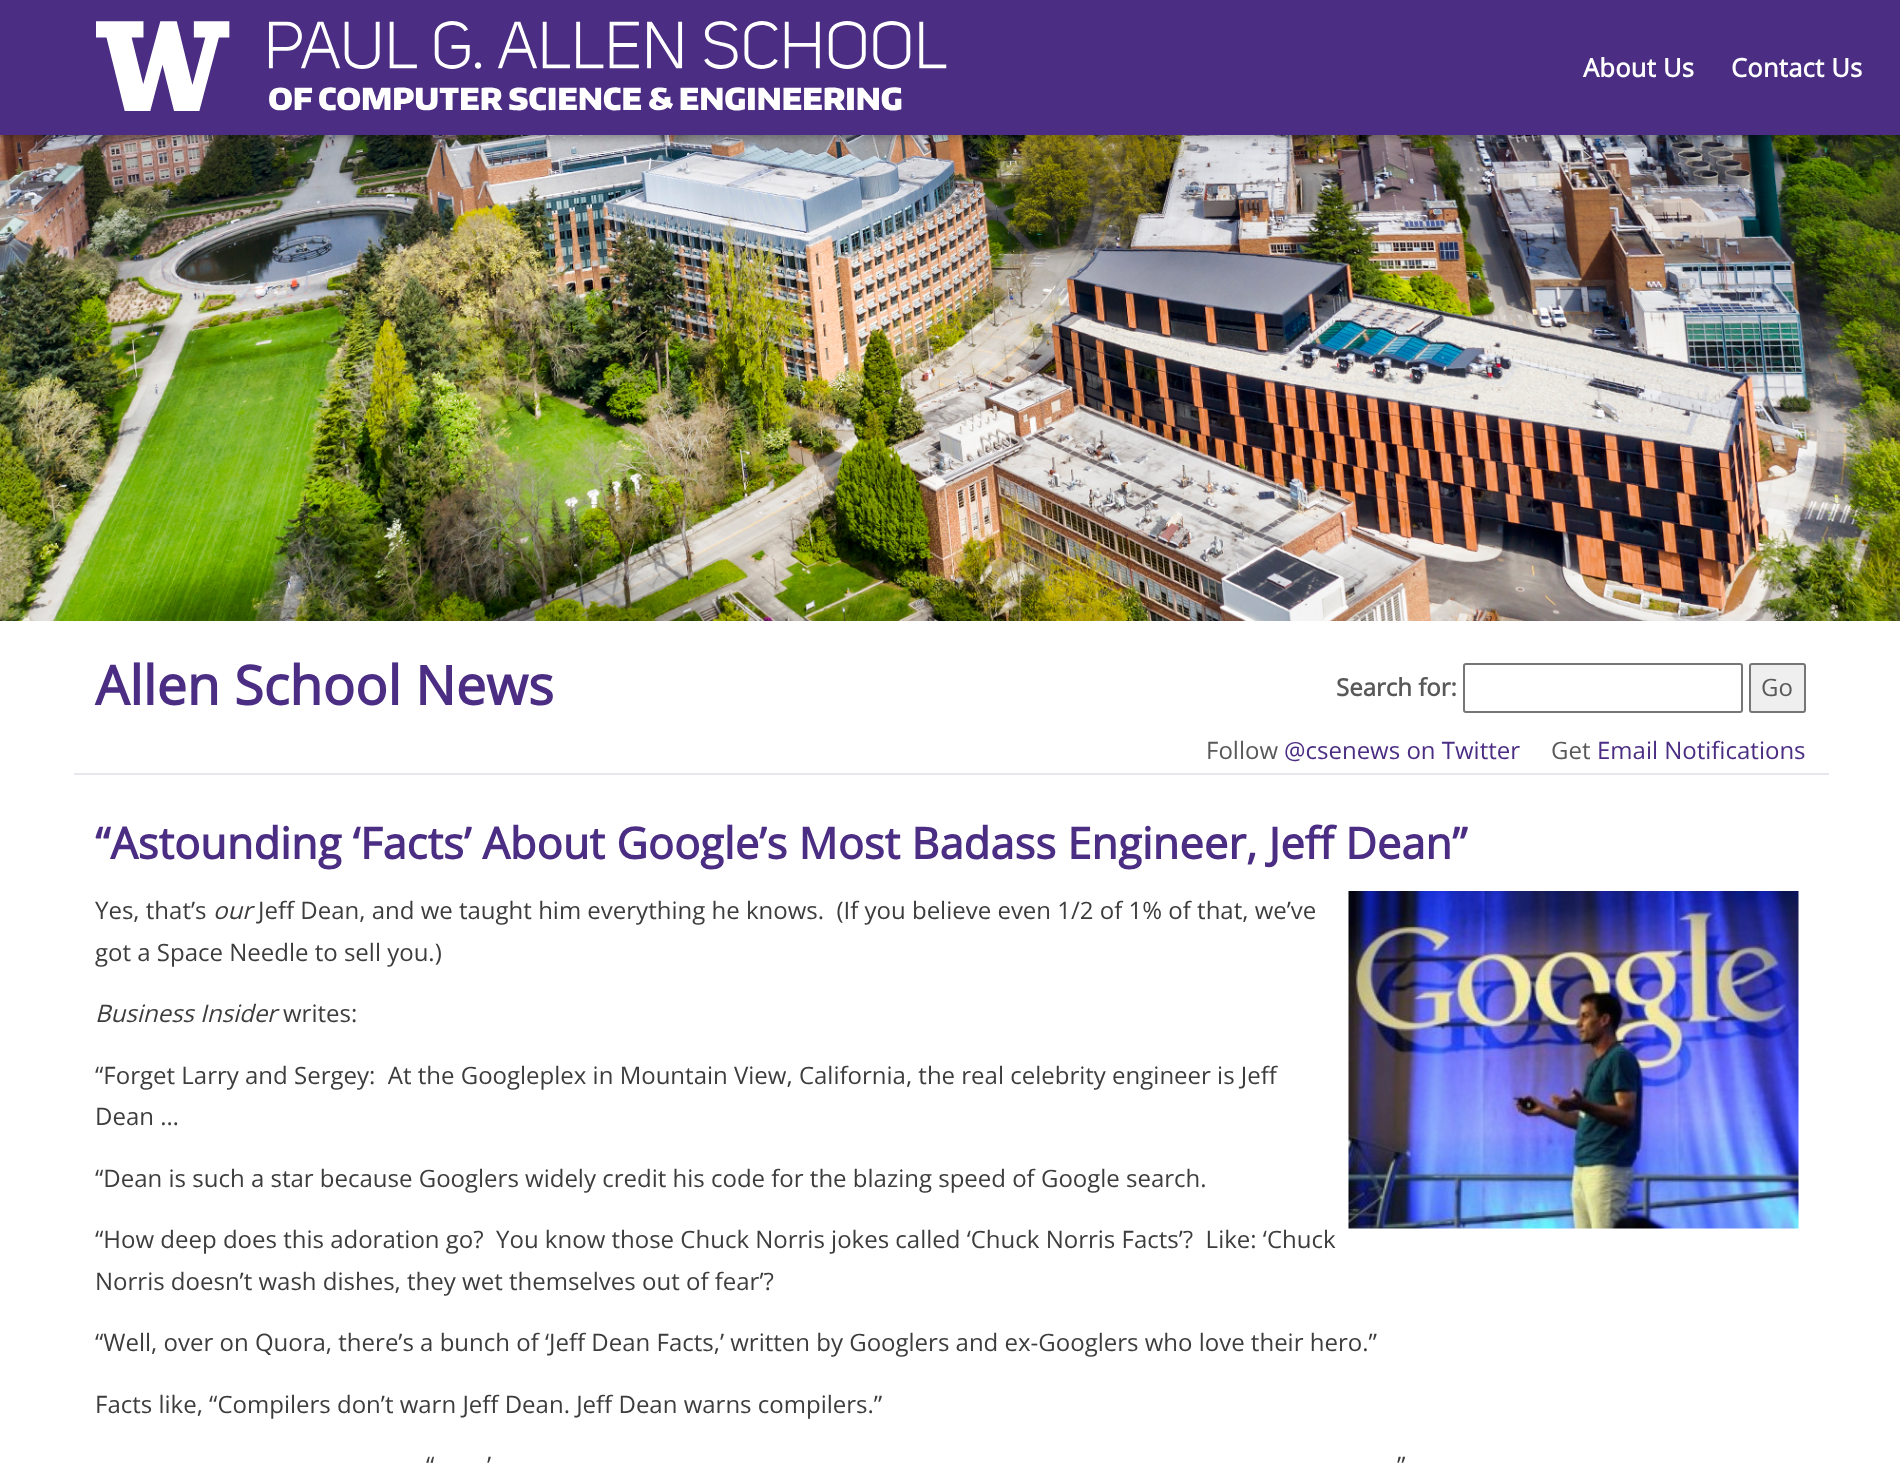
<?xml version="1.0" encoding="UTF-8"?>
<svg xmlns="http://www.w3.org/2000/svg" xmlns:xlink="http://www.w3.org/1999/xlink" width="1900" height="1466">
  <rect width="100%" height="100%" fill="#ffffff" />
  <image x="0" y="135" width="1900" height="486" xlink:href="image2.png" />
  <rect y="3" width="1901" height="135" fill="#000000" fill-opacity="0.3" filter="blur(4px)" />
  <rect width="1900" height="135" fill="#4b2e83" />
  <image x="96" y="21" width="851" height="90" xlink:href="image1.png" />
  <rect x="74" y="773" width="1755" height="2" fill="#e9e6f0" />
  <rect x="1464" y="664" width="278" height="48" rx="2" fill="none" stroke="#767676" stroke-width="2" />
  <rect x="1750" y="664" width="55" height="48" rx="2" fill="#efefef" stroke="#767676" stroke-width="2" />
  <image x="1348" y="891" width="451" height="338" xlink:href="image3.png" />
  <text x="1583" y="77" style="font-family: Open Sans; font-size: 25.5px; font-weight: bold; letter-spacing: 0.25px; fill: #ffffff">About Us</text>
  <text x="1731" y="77" style="font-family: Open Sans; font-size: 25.5px; font-weight: bold; letter-spacing: 0.25px; fill: #ffffff">Contact Us</text>
  <text x="95" y="705" style="font-family: Open Sans; font-size: 54px; font-weight: bold; fill: #4b2e83">Allen School News</text>
  <text x="1336" y="696" style="font-family: Open Sans; font-size: 24px; font-weight: bold; fill: #595959">Search for:</text>
  <text x="1761" y="696" style="font-family: Open Sans; font-size: 24px; fill: #595959">Go</text>
  <text x="1206" y="759" style="font-family: Open Sans; font-size: 24px; fill: #595959">Follow</text>
  <text x="1284" y="759" style="font-family: Open Sans; font-size: 24px; fill: #4b2e83">@csenews on Twitter</text>
  <text x="1551" y="759" style="font-family: Open Sans; font-size: 24px; fill: #595959">Get</text>
  <text x="1597" y="759" style="font-family: Open Sans; font-size: 24px; fill: #4b2e83">Email Notifications</text>
  <text x="95" y="859" style="font-family: Open Sans; font-size: 43.5px; font-weight: bold; fill: #4b2e83">“Astounding ‘Facts’ About Google’s Most Badass Engineer, Jeff Dean”</text>
  <text x="95" y="919" style="font-family: Open Sans; font-size: 24px; fill: #3d3d3d">Yes, that’s</text>
  <text x="213" y="919" style="font-family: Open Sans; font-size: 24px; font-style: italic; fill: #3d3d3d">our</text>
  <text x="258" y="919" style="font-family: Open Sans; font-size: 24px; fill: #3d3d3d" xml:space="preserve">Jeff Dean, and we taught him everything he knows.  (If you believe even 1/2 of 1% of that, we’ve</text>
  <text x="95" y="961" style="font-family: Open Sans; font-size: 24px; fill: #3d3d3d">got a Space Needle to sell you.)</text>
  <text x="95" y="1022" style="font-family: Open Sans; font-size: 24px; font-style: italic; fill: #3d3d3d">Business Insider</text>
  <text x="283" y="1022" style="font-family: Open Sans; font-size: 24px; fill: #3d3d3d">writes:</text>
  <text x="95" y="1084" style="font-family: Open Sans; font-size: 24px; fill: #3d3d3d" xml:space="preserve">“Forget Larry and Sergey:  At the Googleplex in Mountain View, California, the real celebrity engineer is Jeff</text>
  <text x="95" y="1125" style="font-family: Open Sans; font-size: 24px; fill: #3d3d3d">Dean …</text>
  <text x="95" y="1187" style="font-family: Open Sans; font-size: 24px; fill: #3d3d3d">“Dean is such a star because Googlers widely credit his code for the blazing speed of Google search.</text>
  <text x="95" y="1248" style="font-family: Open Sans; font-size: 24px; fill: #3d3d3d" xml:space="preserve">“How deep does this adoration go?  You know those Chuck Norris jokes called ‘Chuck Norris Facts’?  Like: ‘Chuck</text>
  <text x="95" y="1290" style="font-family: Open Sans; font-size: 24px; fill: #3d3d3d">Norris doesn’t wash dishes, they wet themselves out of fear’?</text>
  <text x="95" y="1351" style="font-family: Open Sans; font-size: 24px; fill: #3d3d3d">“Well, over on Quora, there’s a bunch of ‘Jeff Dean Facts,’ written by Googlers and ex-Googlers who love their hero.”</text>
  <text x="95" y="1413" style="font-family: Open Sans; font-size: 24px; fill: #3d3d3d">Facts like, “Compilers don’t warn Jeff Dean. Jeff Dean warns compilers.”</text>
  <text x="426" y="1474" style="font-family: Open Sans; font-size: 24px; fill: #3d3d3d">“</text>
  <text x="487" y="1474" style="font-family: Open Sans; font-size: 24px; fill: #3d3d3d">’</text>
  <text x="1397" y="1474" style="font-family: Open Sans; font-size: 24px; fill: #3d3d3d">”</text>
</svg>
